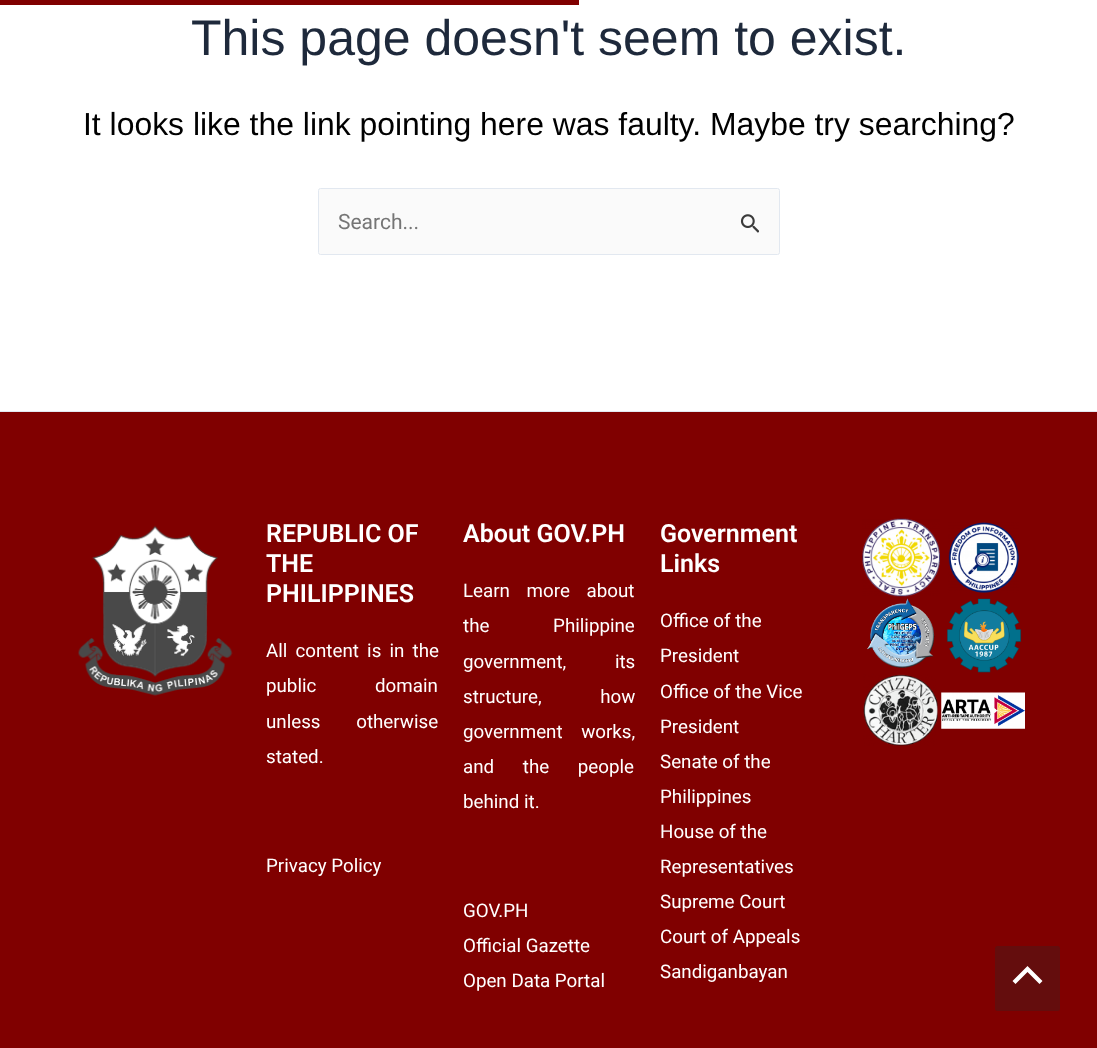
<?xml version="1.0" encoding="UTF-8"?>
<svg xmlns="http://www.w3.org/2000/svg" xmlns:xlink="http://www.w3.org/1999/xlink" width="1097" height="1048">
  <rect width="100%" height="100%" fill="#ffffff" />
  <rect width="579" height="5" fill="#800000" />
  <rect x="318.5" y="188.5" width="461" height="66" rx="2" fill="#fafafa" stroke="#e2e8f0" />
  <image x="740" y="214" width="19" height="19" xlink:href="image1.png" />
  <rect y="412" width="1097" height="636" fill="#800000" />
  <rect y="411" width="1097" height="1" fill="#e2e8f0" />
  <image x="78" y="525" width="155" height="171" xlink:href="image2.png" />
  <image x="862" y="518" width="78" height="79" xlink:href="image3.png" />
  <image x="948" y="522" width="71" height="71" xlink:href="image4.png" />
  <image x="867" y="598" width="68" height="70" xlink:href="image5.png" />
  <image x="947" y="598" width="75" height="75" xlink:href="image6.png" />
  <image x="863" y="674" width="75" height="72" xlink:href="image7.png" />
  <image x="941" y="692" width="84" height="37" xlink:href="image8.png" />
  <rect x="995" y="946" width="65" height="65" rx="2.5" fill="#640d0d" />
  <path d="M 1042.5 981 l -15 -15 l -15 15 l 3 3 l 12 -12 l 12 12 z" fill="#ffffff" />
  <text x="191" y="55" style="font-family: Liberation Sans; font-size: 50px; fill: #1e293b">This page doesn't seem to exist.</text>
  <text x="83" y="135" style="font-family: Liberation Sans; font-size: 31.9px; fill: #000000">It looks like the link pointing here was faulty. Maybe try searching?</text>
  <text x="338" y="229" style="font-family: Roboto; font-size: 21px; fill: #757575">Search...</text>
  <text x="266" y="542" style="font-family: Roboto; font-size: 25px; font-weight: 600; fill: #ffffff">REPUBLIC OF</text>
  <text x="266" y="572" style="font-family: Roboto; font-size: 25px; font-weight: 600; fill: #ffffff">THE</text>
  <text x="266" y="602" style="font-family: Roboto; font-size: 25px; font-weight: 600; fill: #ffffff">PHILIPPINES</text>
  <text x="266" y="657" word-spacing="3.5" style="font-family: Roboto; font-size: 18.75px; fill: #ffffff">All content is in the</text>
  <text x="266" y="692" word-spacing="54" style="font-family: Roboto; font-size: 18.75px; fill: #ffffff">public domain</text>
  <text x="266" y="728" word-spacing="31" style="font-family: Roboto; font-size: 18.75px; fill: #ffffff">unless otherwise</text>
  <text x="266" y="763" style="font-family: Roboto; font-size: 18.75px; fill: #ffffff">stated.</text>
  <text x="266" y="872" style="font-family: Roboto; font-size: 18.75px; fill: #ffffff">Privacy Policy</text>
  <text x="463" y="542" style="font-family: Roboto; font-size: 25px; font-weight: 600; fill: #ffffff">About GOV.PH</text>
  <text x="463" y="597" word-spacing="12" style="font-family: Roboto; font-size: 18.75px; fill: #ffffff">Learn more about</text>
  <text x="463" y="632" word-spacing="59" style="font-family: Roboto; font-size: 18.75px; fill: #ffffff">the Philippine</text>
  <text x="463" y="668" word-spacing="44" style="font-family: Roboto; font-size: 18.75px; fill: #ffffff">government, its</text>
  <text x="463" y="703" word-spacing="54" style="font-family: Roboto; font-size: 18.75px; fill: #ffffff">structure, how</text>
  <text x="463" y="738" word-spacing="14" style="font-family: Roboto; font-size: 18.75px; fill: #ffffff">government works,</text>
  <text x="463" y="773" word-spacing="24" style="font-family: Roboto; font-size: 18.75px; fill: #ffffff">and the people</text>
  <text x="463" y="808" style="font-family: Roboto; font-size: 18.75px; fill: #ffffff">behind it.</text>
  <text x="463" y="917" style="font-family: Roboto; font-size: 18.75px; fill: #ffffff">GOV.PH</text>
  <text x="463" y="952" style="font-family: Roboto; font-size: 18.75px; fill: #ffffff">Official Gazette</text>
  <text x="463" y="987" style="font-family: Roboto; font-size: 18.75px; fill: #ffffff">Open Data Portal</text>
  <text x="660" y="542" style="font-family: Roboto; font-size: 25px; font-weight: 600; fill: #ffffff">Government</text>
  <text x="660" y="572" style="font-family: Roboto; font-size: 25px; font-weight: 600; fill: #ffffff">Links</text>
  <text x="660" y="627" style="font-family: Roboto; font-size: 18.75px; fill: #ffffff">Office of the</text>
  <text x="660" y="662" style="font-family: Roboto; font-size: 18.75px; fill: #ffffff">President</text>
  <text x="660" y="698" style="font-family: Roboto; font-size: 18.75px; fill: #ffffff">Office of the Vice</text>
  <text x="660" y="733" style="font-family: Roboto; font-size: 18.75px; fill: #ffffff">President</text>
  <text x="660" y="768" style="font-family: Roboto; font-size: 18.75px; fill: #ffffff">Senate of the</text>
  <text x="660" y="803" style="font-family: Roboto; font-size: 18.75px; fill: #ffffff">Philippines</text>
  <text x="660" y="838" style="font-family: Roboto; font-size: 18.75px; fill: #ffffff">House of the</text>
  <text x="660" y="873" style="font-family: Roboto; font-size: 18.75px; fill: #ffffff">Representatives</text>
  <text x="660" y="908" style="font-family: Roboto; font-size: 18.75px; fill: #ffffff">Supreme Court</text>
  <text x="660" y="943" style="font-family: Roboto; font-size: 18.75px; fill: #ffffff">Court of Appeals</text>
  <text x="660" y="978" style="font-family: Roboto; font-size: 18.75px; fill: #ffffff">Sandiganbayan</text>
</svg>
